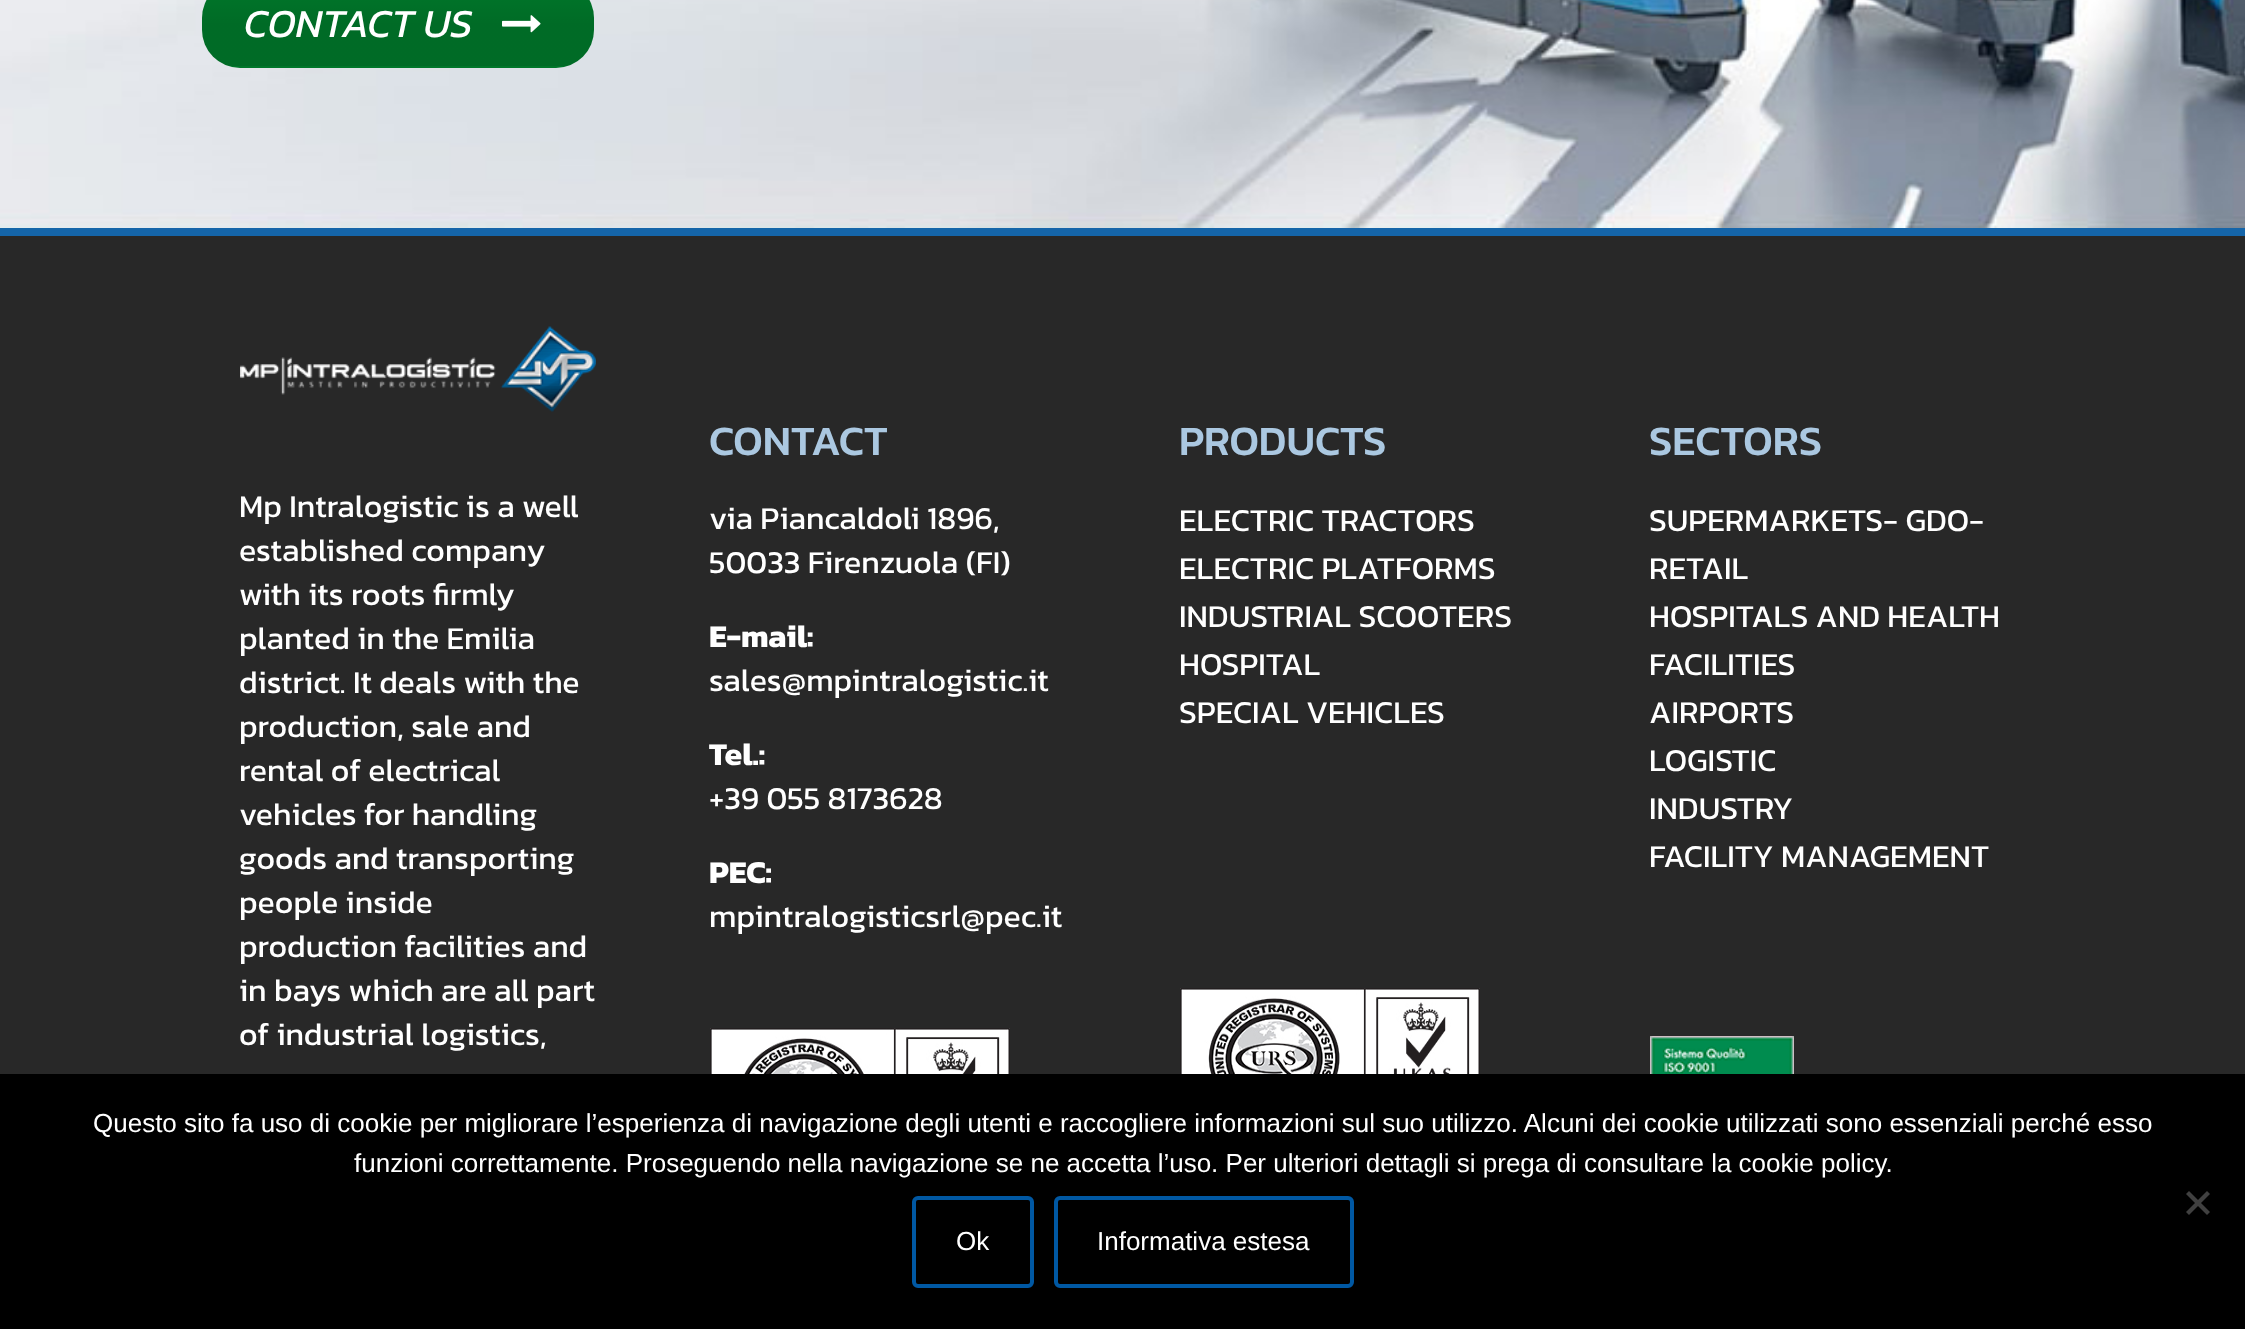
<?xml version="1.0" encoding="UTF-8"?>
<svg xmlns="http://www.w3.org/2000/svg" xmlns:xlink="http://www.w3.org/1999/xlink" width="2245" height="1329">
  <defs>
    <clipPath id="clip1"><rect x="202" y="-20" width="392" height="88" rx="38" /></clipPath>
    <linearGradient id="g1" gradientUnits="userSpaceOnUse" x1="592" y1="-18" x2="592" y2="66"><stop offset="0" stop-color="#000000" stop-opacity="0" /><stop offset="0.5" stop-color="#000000" stop-opacity="0.1" /><stop offset="1" stop-color="#000000" stop-opacity="0.1" /></linearGradient>
  </defs>
  <rect width="100%" height="100%" fill="#ffffff" />
  <image x="0" y="0" width="2245" height="228" xlink:href="image1.png" />
  <rect y="228" width="2245" height="8" fill="#1565a9" />
  <rect x="202" y="-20" width="392" height="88" rx="38" fill="#00772a" />
  <g clip-path="url(#clip1)">
    <rect x="202" width="392" height="66" fill="url(#g1)" />
  </g>
  <image x="502" y="15" width="39" height="18" xlink:href="image2.png" />
  <rect y="236" width="2245" height="838" fill="#282828" />
  <image x="240" y="326" width="356" height="86" xlink:href="image3.png" />
  <image x="710" y="1028" width="300" height="46" xlink:href="image4.png" />
  <image x="1180" y="988" width="300" height="86" xlink:href="image5.png" />
  <image x="1650" y="1036" width="144" height="38" xlink:href="image6.png" />
  <rect y="1074" width="2245" height="255" fill="#000000" />
  <path d="M 2207 1191 l 3 3 l -21 21 l -3 -3 z" fill="#404040" />
  <path d="M 2186 1194 l 3 -3 l 21 21 l -3 3 z" fill="#404040" />
  <rect x="914" y="1198" width="118" height="88" rx="4" fill="none" stroke="#0058a3" stroke-width="4" />
  <rect x="1056" y="1198" width="296" height="88" rx="4" fill="none" stroke="#0058a3" stroke-width="4" />
  <text x="244" y="37" style="font-family: Kanit; font-size: 40px; font-style: italic; fill: #ffffff">CONTACT US</text>
  <text x="239" y="517" style="font-family: Kanit; font-size: 32px; fill: #ffffff">Mp Intralogistic is a well</text>
  <text x="239" y="561" style="font-family: Kanit; font-size: 32px; fill: #ffffff">established company</text>
  <text x="239" y="605" style="font-family: Kanit; font-size: 32px; fill: #ffffff">with its roots firmly</text>
  <text x="239" y="649" style="font-family: Kanit; font-size: 32px; fill: #ffffff">planted in the Emilia</text>
  <text x="239" y="693" style="font-family: Kanit; font-size: 32px; fill: #ffffff">district. It deals with the</text>
  <text x="239" y="737" style="font-family: Kanit; font-size: 32px; fill: #ffffff">production, sale and</text>
  <text x="239" y="781" style="font-family: Kanit; font-size: 32px; fill: #ffffff">rental of electrical</text>
  <text x="239" y="825" style="font-family: Kanit; font-size: 32px; fill: #ffffff">vehicles for handling</text>
  <text x="239" y="869" style="font-family: Kanit; font-size: 32px; fill: #ffffff">goods and transporting</text>
  <text x="239" y="913" style="font-family: Kanit; font-size: 32px; fill: #ffffff">people inside</text>
  <text x="239" y="957" style="font-family: Kanit; font-size: 32px; fill: #ffffff">production facilities and</text>
  <text x="239" y="1001" style="font-family: Kanit; font-size: 32px; fill: #ffffff">in bays which are all part</text>
  <text x="239" y="1045" style="font-family: Kanit; font-size: 32px; fill: #ffffff">of industrial logistics,</text>
  <text x="709" y="455" style="font-family: Kanit; font-size: 42px; font-weight: 500; fill: #abc8e1">CONTACT</text>
  <text x="709" y="529" style="font-family: Kanit; font-size: 32px; fill: #ffffff">via Piancaldoli 1896,</text>
  <text x="709" y="573" style="font-family: Kanit; font-size: 32px; fill: #ffffff">50033 Firenzuola (FI)</text>
  <text x="709" y="647" style="font-family: Kanit; font-size: 32px; font-weight: bold; fill: #ffffff">E-mail:</text>
  <text x="709" y="691" style="font-family: Kanit; font-size: 32px; fill: #ffffff">sales@mpintralogistic.it</text>
  <text x="709" y="765" style="font-family: Kanit; font-size: 32px; font-weight: bold; fill: #ffffff">Tel.:</text>
  <text x="709" y="809" style="font-family: Kanit; font-size: 32px; fill: #ffffff">+39 055 8173628</text>
  <text x="709" y="883" style="font-family: Kanit; font-size: 32px; font-weight: bold; fill: #ffffff">PEC:</text>
  <text x="709" y="927" style="font-family: Kanit; font-size: 32px; fill: #ffffff">mpintralogisticsrl@pec.it</text>
  <text x="1179" y="455" style="font-family: Kanit; font-size: 42px; font-weight: 500; fill: #abc8e1">PRODUCTS</text>
  <text x="1179" y="531" style="font-family: Kanit; font-size: 32px; fill: #ffffff">ELECTRIC TRACTORS</text>
  <text x="1179" y="579" style="font-family: Kanit; font-size: 32px; fill: #ffffff">ELECTRIC PLATFORMS</text>
  <text x="1179" y="627" style="font-family: Kanit; font-size: 32px; fill: #ffffff">INDUSTRIAL SCOOTERS</text>
  <text x="1179" y="675" style="font-family: Kanit; font-size: 32px; fill: #ffffff">HOSPITAL</text>
  <text x="1179" y="723" style="font-family: Kanit; font-size: 32px; fill: #ffffff">SPECIAL VEHICLES</text>
  <text x="1649" y="455" style="font-family: Kanit; font-size: 42px; font-weight: 500; fill: #abc8e1">SECTORS</text>
  <text x="1649" y="531" style="font-family: Kanit; font-size: 32px; fill: #ffffff">SUPERMARKETS- GDO-</text>
  <text x="1649" y="579" style="font-family: Kanit; font-size: 32px; fill: #ffffff">RETAIL</text>
  <text x="1649" y="627" style="font-family: Kanit; font-size: 32px; fill: #ffffff">HOSPITALS AND HEALTH</text>
  <text x="1649" y="675" style="font-family: Kanit; font-size: 32px; fill: #ffffff">FACILITIES</text>
  <text x="1649" y="723" style="font-family: Kanit; font-size: 32px; fill: #ffffff">AIRPORTS</text>
  <text x="1649" y="771" style="font-family: Kanit; font-size: 32px; fill: #ffffff">LOGISTIC</text>
  <text x="1649" y="819" style="font-family: Kanit; font-size: 32px; fill: #ffffff">INDUSTRY</text>
  <text x="1649" y="867" style="font-family: Kanit; font-size: 32px; fill: #ffffff">FACILITY MANAGEMENT</text>
  <text x="93" y="1132" style="font-family: Liberation Sans; font-size: 26px; fill: #ffffff">Questo sito fa uso di cookie per migliorare l’esperienza di navigazione degli utenti e raccogliere informazioni sul suo utilizzo. Alcuni dei cookie utilizzati sono essenziali perché esso</text>
  <text x="354" y="1172" style="font-family: Liberation Sans; font-size: 26px; fill: #ffffff">funzioni correttamente. Proseguendo nella navigazione se ne accetta l’uso. Per ulteriori dettagli si prega di consultare la cookie policy.</text>
  <text x="956" y="1250" style="font-family: Liberation Sans; font-size: 26px; fill: #ffffff">Ok</text>
  <text x="1097" y="1250" style="font-family: Liberation Sans; font-size: 26px; fill: #ffffff">Informativa estesa</text>
</svg>
